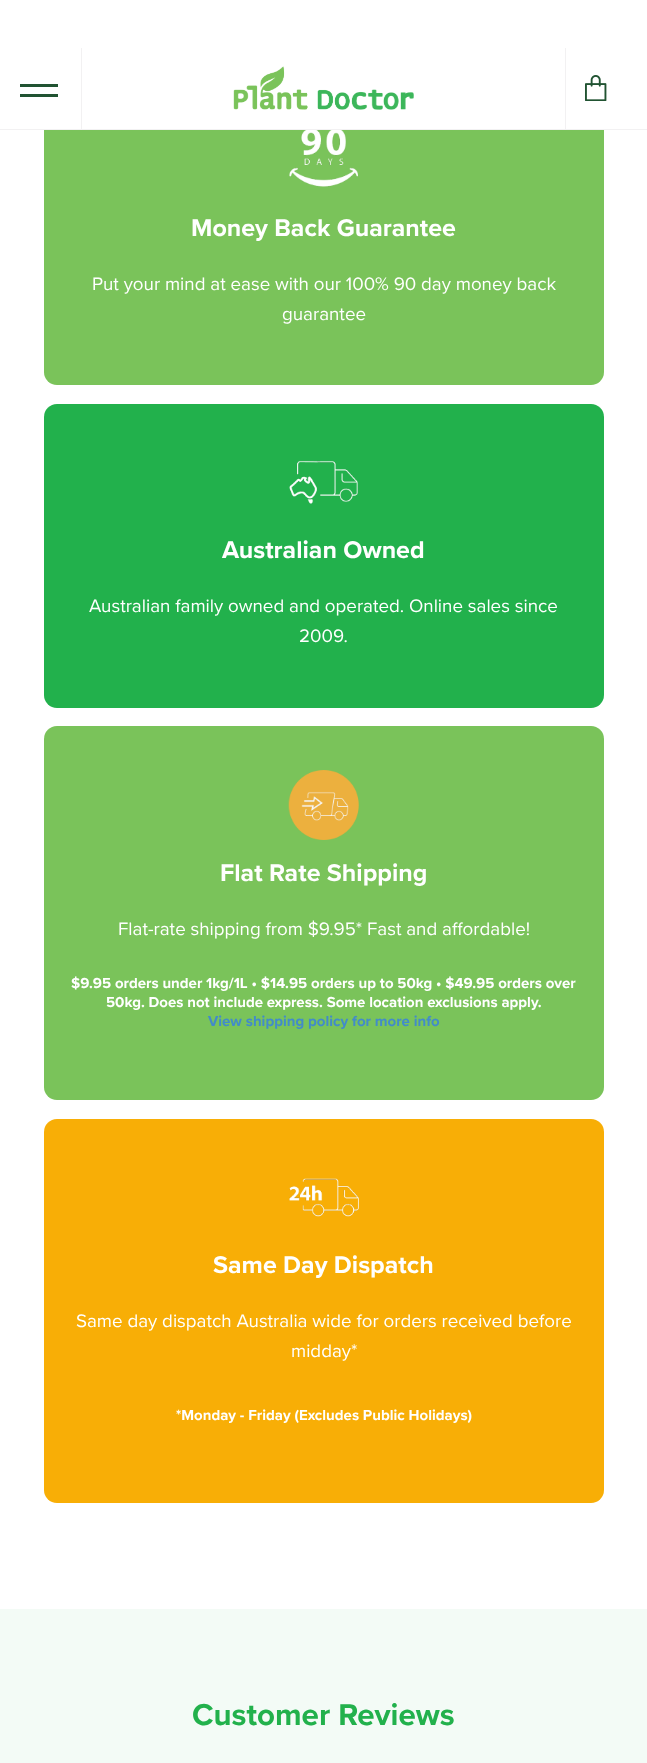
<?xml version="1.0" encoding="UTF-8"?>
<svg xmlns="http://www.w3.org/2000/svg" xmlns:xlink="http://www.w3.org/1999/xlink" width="647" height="1763">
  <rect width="100%" height="100%" fill="#ffffff" />
  <rect x="44" y="81" width="560" height="304" rx="13" fill="#7ac35a" />
  <rect x="44" y="81" width="560" height="48" fill="#ffffff" />
  <rect y="129" width="647" height="1" fill="#f2f1f2" />
  <rect x="20" y="84" width="38" height="3" fill="#215332" />
  <rect x="20" y="94" width="38" height="3" fill="#215332" />
  <rect x="565" y="48" width="1" height="81" fill="#f2f1f2" />
  <rect x="81" y="48" width="1" height="81" fill="#f2f1f2" />
  <image x="233" y="66" width="181" height="44" xlink:href="image1.png" />
  <image x="585" y="75" width="22" height="26" xlink:href="image2.png" />
  <image x="289" y="130" width="69" height="57" xlink:href="image3.png" />
  <rect x="44" y="404" width="560" height="304" rx="13" fill="#22b14c" />
  <image x="289" y="460" width="69" height="44" xlink:href="image4.png" />
  <rect x="44" y="726" width="560" height="374" rx="13" fill="#7ac35a" />
  <image x="288" y="770" width="71" height="70" xlink:href="image5.png" />
  <rect x="44" y="1119" width="560" height="384" rx="13" fill="#f8ae06" />
  <image x="289" y="1178" width="70" height="39" xlink:href="image6.png" />
  <rect y="1609" width="647" height="154" fill="#f3fbf6" />
  <text x="191" y="236" style="font-family: Proxima Nova; font-size: 25px; font-weight: bold; fill: #ffffff">Money Back Guarantee</text>
  <text x="92" y="290" style="font-family: Proxima Nova; font-size: 18.75px; fill: #ffffff">Put your mind at ease with our 100% 90 day money back</text>
  <text x="282" y="320" style="font-family: Proxima Nova; font-size: 18.75px; fill: #ffffff">guarantee</text>
  <text x="222" y="558" style="font-family: Proxima Nova; font-size: 25px; font-weight: bold; fill: #ffffff">Australian Owned</text>
  <text x="89" y="612" style="font-family: Proxima Nova; font-size: 18.75px; fill: #ffffff">Australian family owned and operated. Online sales since</text>
  <text x="299" y="642" style="font-family: Proxima Nova; font-size: 18.75px; fill: #ffffff">2009.</text>
  <text x="220" y="881" style="font-family: Proxima Nova; font-size: 25px; font-weight: bold; fill: #ffffff">Flat Rate Shipping</text>
  <text x="118" y="935" style="font-family: Proxima Nova; font-size: 18.75px; fill: #ffffff">Flat-rate shipping from $9.95* Fast and affordable!</text>
  <text x="71" y="988" style="font-family: Proxima Nova; font-size: 15px; font-weight: bold; fill: #ffffff">$9.95 orders under 1kg/1L • $14.95 orders up to 50kg • $49.95 orders over</text>
  <text x="106" y="1007" style="font-family: Proxima Nova; font-size: 15px; font-weight: bold; fill: #ffffff">50kg. Does not include express. Some location exclusions apply.</text>
  <text x="208" y="1026" style="font-family: Proxima Nova; font-size: 15px; font-weight: bold; fill: #428bca">View shipping policy for more info</text>
  <text x="213" y="1273" style="font-family: Proxima Nova; font-size: 25px; font-weight: bold; fill: #ffffff">Same Day Dispatch</text>
  <text x="76" y="1327" style="font-family: Proxima Nova; font-size: 18.75px; fill: #ffffff">Same day dispatch Australia wide for orders received before</text>
  <text x="291" y="1357" style="font-family: Proxima Nova; font-size: 18.75px; fill: #ffffff">midday*</text>
  <text x="176" y="1420" style="font-family: Proxima Nova; font-size: 15px; font-weight: bold; fill: #ffffff">*Monday - Friday (Excludes Public Holidays)</text>
  <text x="192" y="1725" style="font-family: Proxima Nova; font-size: 31.25px; font-weight: bold; fill: #22b14c">Customer Reviews</text>
</svg>
